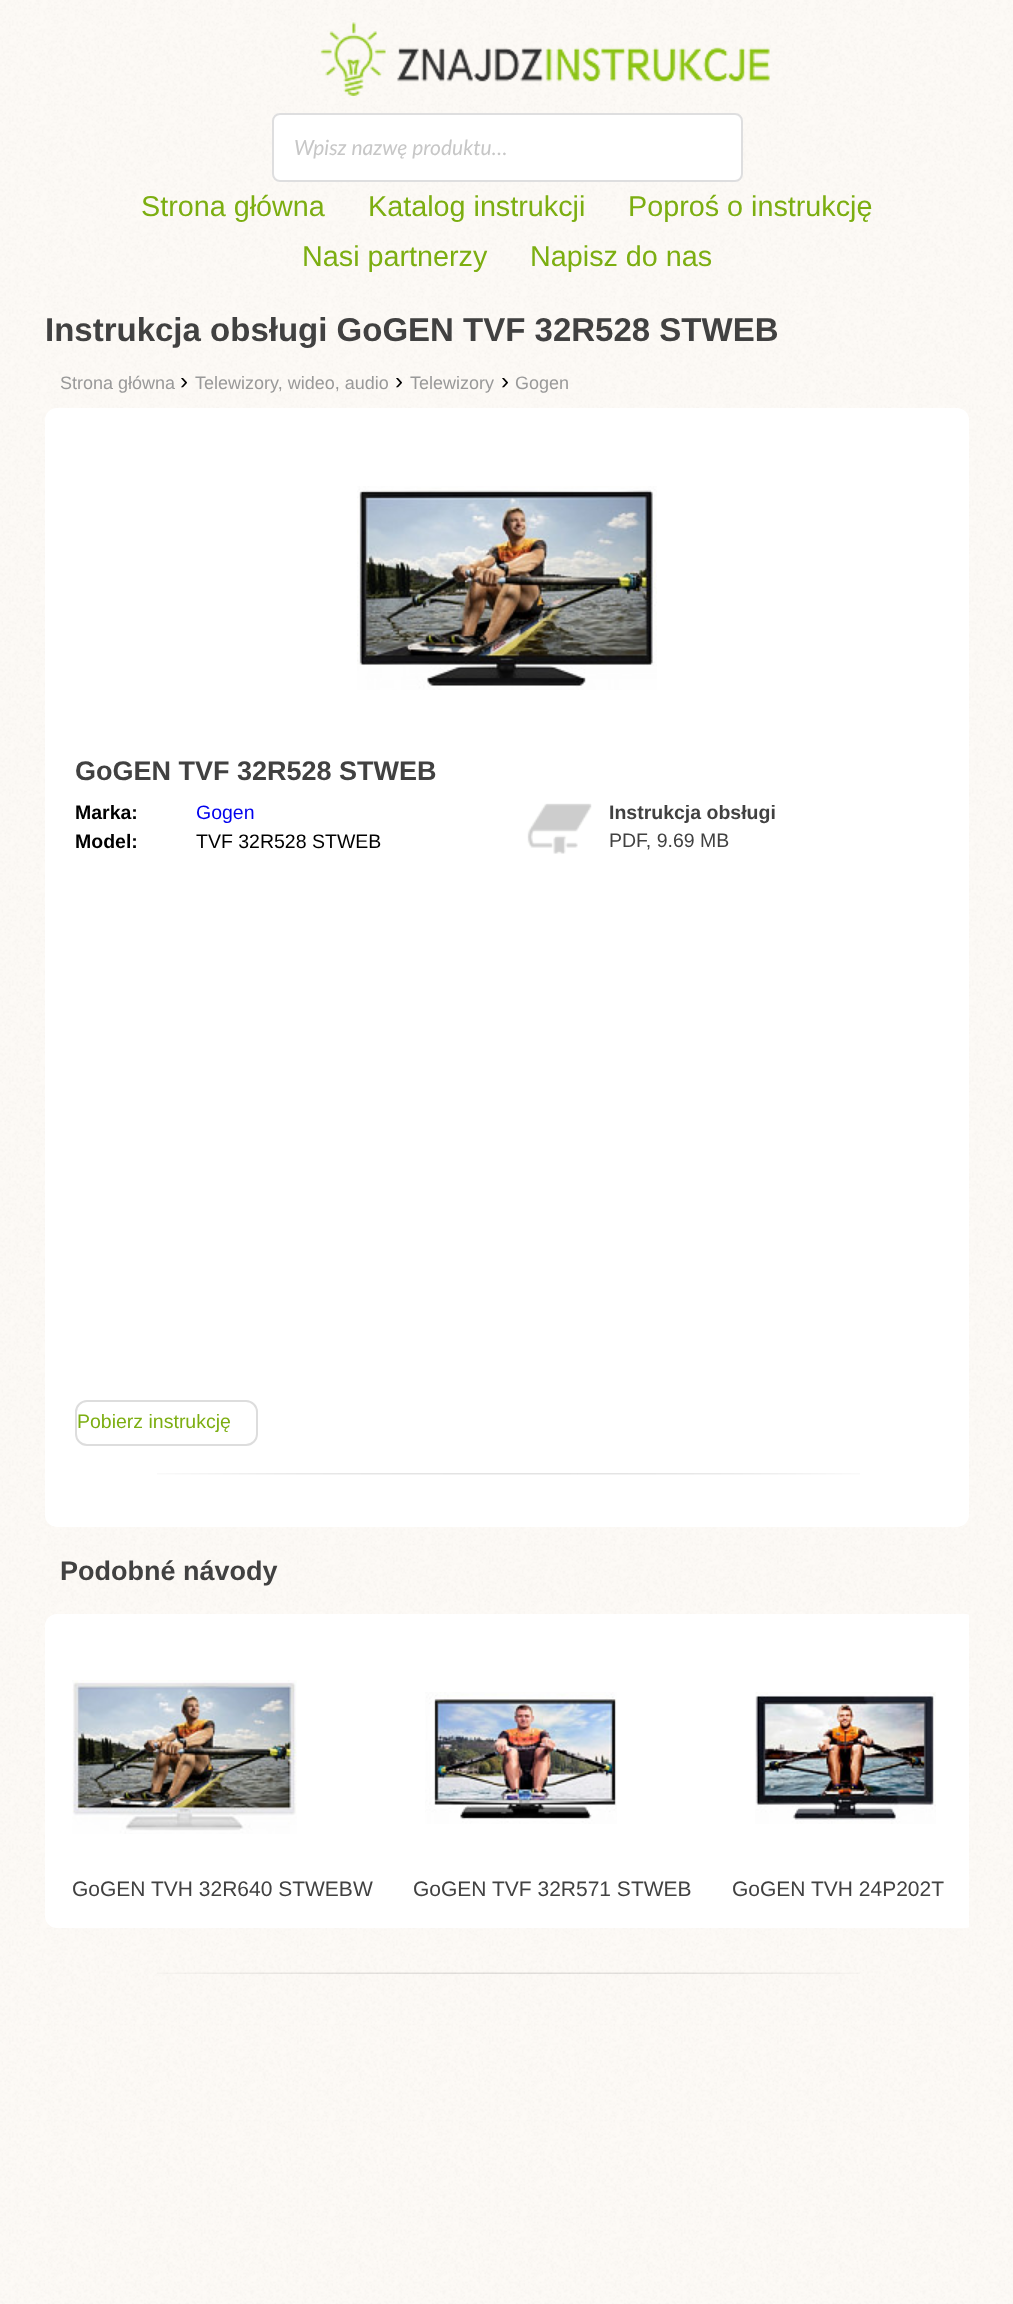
<?xml version="1.0" encoding="UTF-8"?>
<svg xmlns="http://www.w3.org/2000/svg" xmlns:xlink="http://www.w3.org/1999/xlink" width="1013" height="2304">
  <defs>
    <clipPath id="clip1"><rect x="45" y="408" width="924" height="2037" /></clipPath>
  </defs>
  <rect width="100%" height="100%" fill="#ffffff" />
  <image x="0" y="0" width="1013" height="2304" xlink:href="image1.png" />
  <image x="320" y="22" width="450" height="74" xlink:href="image2.png" />
  <rect x="272" y="113" width="471" height="69" rx="8" fill="#ffffff" />
  <rect x="273" y="114" width="469" height="67" rx="7" fill="none" stroke="#222426" stroke-opacity="0.15" stroke-width="2" />
  <rect x="45" y="408" width="924" height="1119" rx="12" fill="#ffffff" />
  <image x="157" y="1473" width="703" height="2" xlink:href="image3.png" />
  <image x="357" y="486" width="300" height="204" xlink:href="image4.png" />
  <image x="527" y="803" width="65" height="51" xlink:href="image5.png" />
  <rect x="76" y="1401" width="181" height="44" rx="11" fill="none" stroke="#dddddd" stroke-width="2" />
  <g clip-path="url(#clip1)">
    <rect x="45" y="1614" width="932" height="314" rx="12" fill="#ffffff" />
  </g>
  <image x="72" y="1680" width="225" height="154" xlink:href="image6.png" />
  <image x="425" y="1692" width="192" height="132" xlink:href="image7.png" />
  <image x="755" y="1692" width="181" height="132" xlink:href="image8.png" />
  <image x="157" y="1972" width="703" height="2" xlink:href="image9.png" />
  <text x="294" y="155" style="font-family: Lato; font-size: 21px; font-style: italic; fill: #c7c7c7">Wpisz nazwę produktu…</text>
  <text x="141" y="216" style="font-family: Liberation Sans; font-size: 28.75px; fill: #7cae11">Strona główna</text>
  <text x="368" y="216" style="font-family: Liberation Sans; font-size: 28.75px; fill: #7cae11">Katalog instrukcji</text>
  <text x="628" y="216" style="font-family: Liberation Sans; font-size: 28.75px; fill: #7cae11">Poproś o instrukcję</text>
  <text x="302" y="266" style="font-family: Liberation Sans; font-size: 28.75px; fill: #7cae11">Nasi partnerzy</text>
  <text x="530" y="266" style="font-family: Liberation Sans; font-size: 28.75px; fill: #7cae11">Napisz do nas</text>
  <text x="45" y="341" style="font-family: Liberation Sans; font-size: 33px; font-weight: bold; fill: #414141">Instrukcja obsługi GoGEN TVF 32R528 STWEB</text>
  <text x="60" y="389" style="font-family: Liberation Sans; font-size: 18px; fill: #999999">Strona główna</text>
  <text x="180" y="389" style="font-family: Liberation Sans; font-size: 24px; fill: #000000">›</text>
  <text x="195" y="389" style="font-family: Liberation Sans; font-size: 18px; fill: #999999">Telewizory, wideo, audio</text>
  <text x="395" y="389" style="font-family: Liberation Sans; font-size: 24px; fill: #000000">›</text>
  <text x="410" y="389" style="font-family: Liberation Sans; font-size: 18px; fill: #999999">Telewizory</text>
  <text x="501" y="389" style="font-family: Liberation Sans; font-size: 24px; fill: #000000">›</text>
  <text x="515" y="389" style="font-family: Liberation Sans; font-size: 18px; fill: #999999">Gogen</text>
  <text x="75" y="780" style="font-family: Liberation Sans; font-size: 27px; font-weight: bold; fill: #414141">GoGEN TVF 32R528 STWEB</text>
  <text x="75" y="819" style="font-family: Liberation Sans; font-size: 19.5px; font-weight: bold; fill: #000000">Marka:</text>
  <text x="196" y="819" style="font-family: Liberation Sans; font-size: 19.5px; fill: #0000ee">Gogen</text>
  <text x="75" y="848" style="font-family: Liberation Sans; font-size: 19.5px; font-weight: bold; fill: #000000">Model:</text>
  <text x="196" y="848" style="font-family: Liberation Sans; font-size: 19.5px; fill: #000000">TVF 32R528 STWEB</text>
  <text x="609" y="819" style="font-family: Liberation Sans; font-size: 19.5px; font-weight: bold; fill: #414141">Instrukcja obsługi</text>
  <text x="609" y="847" style="font-family: Liberation Sans; font-size: 19.5px; fill: #414141">PDF, 9.69 MB</text>
  <text x="77" y="1428" style="font-family: Liberation Sans; font-size: 19.5px; fill: #7cae11">Pobierz instrukcję</text>
  <text x="60" y="1580" style="font-family: Liberation Sans; font-size: 27px; font-weight: bold; fill: #414141">Podobné návody</text>
  <text x="72" y="1896" style="font-family: Liberation Sans; font-size: 21px; fill: #414141">GoGEN TVH 32R640 STWEBW</text>
  <text x="413" y="1896" style="font-family: Liberation Sans; font-size: 21px; fill: #414141">GoGEN TVF 32R571 STWEB</text>
  <text x="732" y="1896" style="font-family: Liberation Sans; font-size: 21px; fill: #414141">GoGEN TVH 24P202T</text>
</svg>
